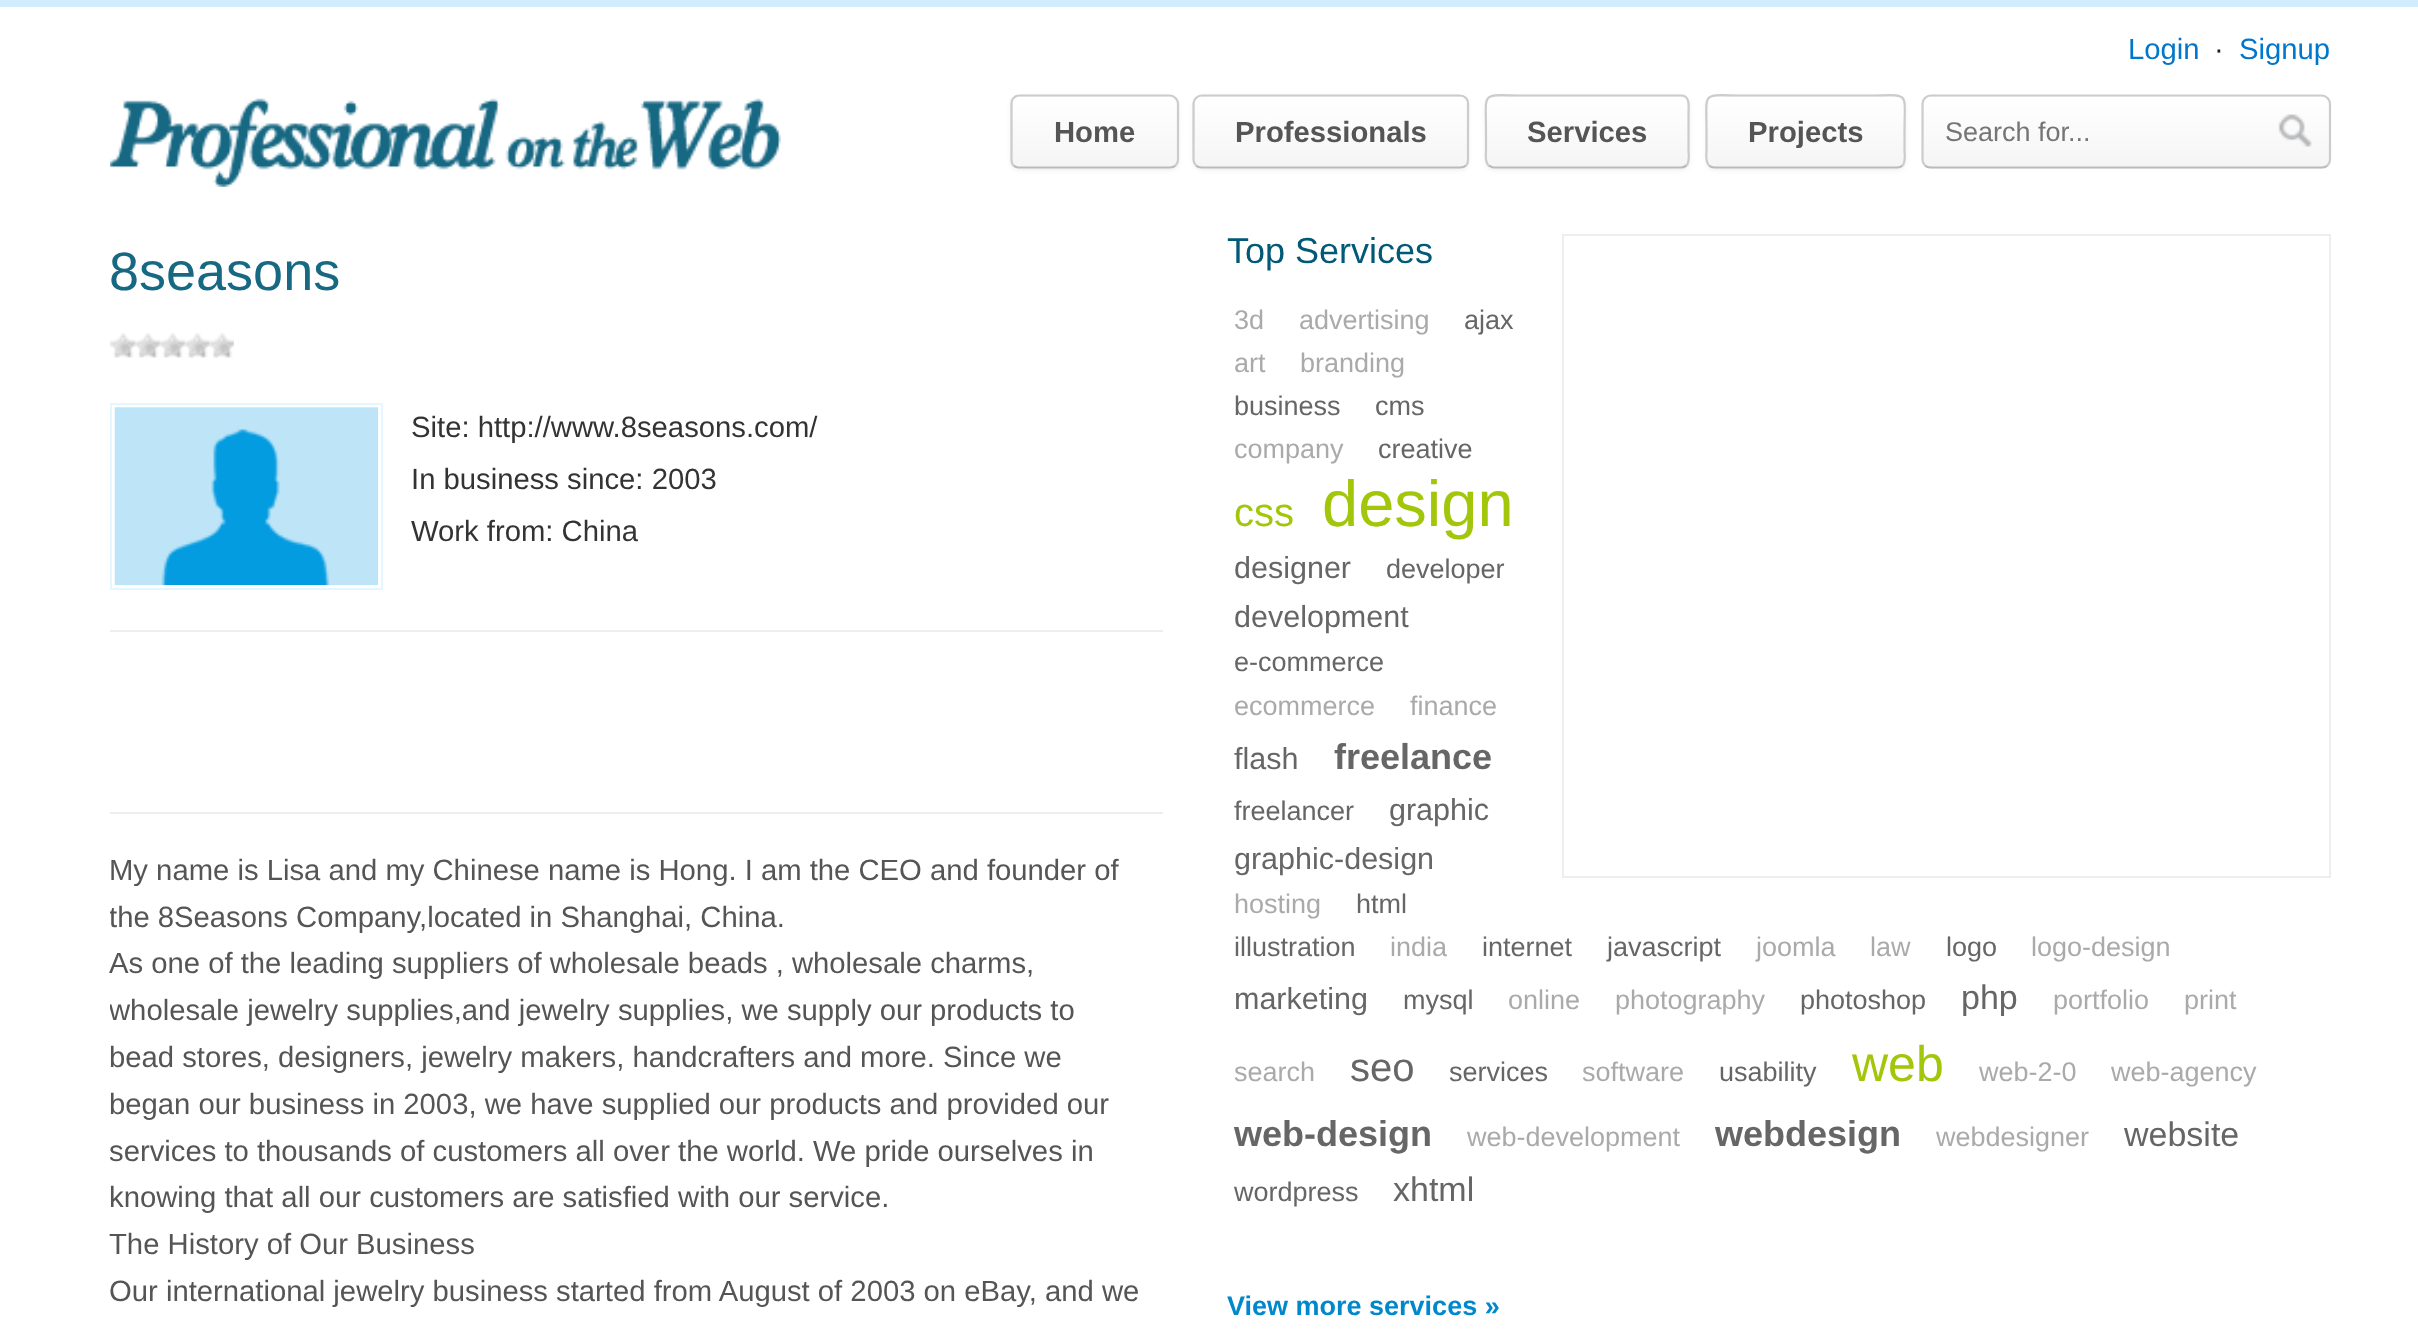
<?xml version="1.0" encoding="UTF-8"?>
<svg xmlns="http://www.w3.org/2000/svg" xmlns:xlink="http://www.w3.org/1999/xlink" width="2418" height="1341">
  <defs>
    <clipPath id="clip1"><rect x="1010" y="95" width="169" height="74" rx="9" /></clipPath>
    <linearGradient id="g1" gradientUnits="userSpaceOnUse" x1="1095" y1="97" x2="1095" y2="167"><stop offset="0" stop-color="#ffffff" /><stop offset="1" stop-color="#f5f5f5" /></linearGradient>
    <clipPath id="clip2"><rect x="1193" y="95" width="276" height="74" rx="9" /></clipPath>
    <linearGradient id="g2" gradientUnits="userSpaceOnUse" x1="1331" y1="97" x2="1331" y2="167"><stop offset="0" stop-color="#ffffff" /><stop offset="1" stop-color="#f5f5f5" /></linearGradient>
    <clipPath id="clip3"><rect x="1485" y="95" width="205" height="74" rx="9" /></clipPath>
    <linearGradient id="g3" gradientUnits="userSpaceOnUse" x1="1587" y1="97" x2="1587" y2="167"><stop offset="0" stop-color="#ffffff" /><stop offset="1" stop-color="#f5f5f5" /></linearGradient>
    <clipPath id="clip4"><rect x="1706" y="95" width="200" height="74" rx="9" /></clipPath>
    <linearGradient id="g4" gradientUnits="userSpaceOnUse" x1="1806" y1="97" x2="1806" y2="167"><stop offset="0" stop-color="#ffffff" /><stop offset="1" stop-color="#f5f5f5" /></linearGradient>
    <clipPath id="clip5"><rect x="1922" y="95" width="409" height="74" rx="9" /></clipPath>
    <linearGradient id="g5" gradientUnits="userSpaceOnUse" x1="2126" y1="97" x2="2126" y2="167"><stop offset="0" stop-color="#ffffff" /><stop offset="1" stop-color="#f5f5f5" /></linearGradient>
    <clipPath id="clip6"><rect x="110" y="826" width="1035" height="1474" /></clipPath>
  </defs>
  <rect width="100%" height="100%" fill="#ffffff" />
  <rect width="2418" height="7" fill="#d2ecff" />
  <image x="110" y="98" width="671" height="89" xlink:href="image1.png" />
  <rect x="1010" y="97" width="169" height="74" rx="9" fill="#000000" fill-opacity="0.05" filter="blur(2px)" />
  <rect x="1010" y="95" width="169" height="74" rx="9" fill="#f5f5f5" />
  <g clip-path="url(#clip1)">
    <rect x="1013" y="97" width="164" height="70" fill="url(#g1)" />
  </g>
  <path d="M 1175.5 165.5 c -1.5 1.5 -3.5 2 -5.5 2 h -151 c -2 0 -4 -0.5 -5.5 -2" fill="none" stroke="#bbbbbb" stroke-width="2.2" />
  <path d="M 1013.5 165.5 c -1.5 -1.5 -2 -3.5 -2 -5.5 v -56.5 c 0 -2 0.5 -4 2 -5.5 c 1.5 -1.5 3.5 -2.5 5.5 -2.5 h 151 c 2 0 4 1 5.5 2.5 c 1.5 1.5 2.5 3.5 2.5 5.5 v 56.5 c 0 2 -1 4 -2.5 5.5" fill="none" stroke="#cccccc" stroke-width="2.2" />
  <rect x="1193" y="97" width="276" height="74" rx="9" fill="#000000" fill-opacity="0.05" filter="blur(2px)" />
  <rect x="1193" y="95" width="276" height="74" rx="9" fill="#f5f5f5" />
  <g clip-path="url(#clip2)">
    <rect x="1195" y="97" width="272" height="70" fill="url(#g2)" />
  </g>
  <path d="M 1466 165.5 c -1.5 1.5 -3.5 2 -6 2 h -258.5 c -2 0 -4 -0.5 -5.5 -2" fill="none" stroke="#bbbbbb" stroke-width="2.2" />
  <path d="M 1196 165.5 c -1.5 -1.5 -2.5 -3.5 -2.5 -5.5 v -56.5 c 0 -2 1 -4 2.5 -5.5 c 1.5 -1.5 3.5 -2.5 5.5 -2.5 h 258.5 c 2.5 0 4.5 1 6 2.5 c 1.5 1.5 2 3.5 2 5.5 v 56.5 c 0 2 -0.5 4 -2 5.5" fill="none" stroke="#cccccc" stroke-width="2.2" />
  <rect x="1485" y="97" width="205" height="74" rx="9" fill="#000000" fill-opacity="0.05" filter="blur(2px)" />
  <rect x="1485" y="95" width="205" height="74" rx="9" fill="#f5f5f5" />
  <g clip-path="url(#clip3)">
    <rect x="1487" y="97" width="201" height="70" fill="url(#g3)" />
  </g>
  <path d="M 1686.5 165.5 c -1.5 1 -3 2 -5 2 h -188.5 l -4.5 -2" fill="none" stroke="#bbbbbb" stroke-width="2.2" />
  <path d="M 1488.5 165.5 c -4 -4 -2.5 -11 -2.5 -15 v -19 c 0 -42.5 -6 -36 39 -36 h 156 c 9.5 0 7.5 11 7.5 17.5 v 37.5 c 0 4 1.5 11 -2 15" fill="none" stroke="#cccccc" stroke-width="2.2" />
  <rect x="1706" y="97" width="200" height="74" rx="9" fill="#000000" fill-opacity="0.05" filter="blur(2px)" />
  <rect x="1706" y="95" width="200" height="74" rx="9" fill="#f5f5f5" />
  <g clip-path="url(#clip4)">
    <rect x="1708" y="97" width="196" height="70" fill="url(#g4)" />
  </g>
  <path d="M 1902.5 165.5 c -1.5 1.5 -3.5 2 -5.5 2 h -182.5 c -2 0 -4 -0.5 -5.5 -2" fill="none" stroke="#bbbbbb" stroke-width="2.2" />
  <path d="M 1709 165.5 c -4 -4 -2.5 -11 -2.5 -15 v -19 c 0 -42.5 -6 -36 38.5 -36 h 121.5 c 44.5 0 38 -6.5 38 36 v 19 c 0 4 1.5 11 -2 15" fill="none" stroke="#cccccc" stroke-width="2.2" />
  <rect x="1922" y="95" width="409" height="74" rx="9" fill="#f5f5f5" />
  <g clip-path="url(#clip5)">
    <rect x="1924" y="97" width="405" height="70" fill="url(#g5)" />
  </g>
  <path d="M 2327.5 165.5 c -1.5 1.5 -3.5 2 -5.5 2 h -391.5 c -2 0 -4 -0.5 -5.5 -2" fill="none" stroke="#bbbbbb" stroke-width="2.2" />
  <path d="M 1925 165.5 c -1.5 -1.5 -2.5 -3.5 -2.5 -5.5 v -56.5 c 0 -2 1 -4 2.5 -5.5 c 1.5 -1.5 3.5 -2.5 5.5 -2.5 h 391.5 c 2 0 4 1 5.5 2.5 c 1.5 1.5 2.5 3.5 2.5 5.5 v 56.5 c 0 2 -1 4 -2.5 5.5" fill="none" stroke="#cccccc" stroke-width="2.2" />
  <image x="2278" y="114" width="34" height="33" xlink:href="image2.png" />
  <image x="110" y="333" width="124" height="25" xlink:href="image3.png" />
  <rect x="111" y="404" width="271" height="185" fill="none" stroke="#e4f6ff" stroke-width="2" />
  <image x="114" y="407" width="264" height="178" xlink:href="image4.png" />
  <rect x="110" y="630" width="1053" height="2" fill="#eeeeee" />
  <rect x="110" y="812" width="1053" height="2" fill="#eeeeee" />
  <rect x="1563" y="235" width="767" height="642" fill="none" stroke="#eeeeee" stroke-width="2" />
  <text x="2128" y="59" style="font-family: Liberation Sans; font-size: 29.25px; fill: #0077cc">Login</text>
  <text x="2214" y="59" style="font-family: Liberation Sans; font-size: 29.25px; fill: #222222">·</text>
  <text x="2239" y="59" style="font-family: Liberation Sans; font-size: 29.25px; fill: #0077cc">Signup</text>
  <text x="1054" y="142" style="font-family: Liberation Sans; font-size: 29.25px; font-weight: bold; fill: #555555">Home</text>
  <text x="1235" y="142" style="font-family: Liberation Sans; font-size: 29.25px; font-weight: bold; fill: #555555">Professionals</text>
  <text x="1527" y="142" style="font-family: Liberation Sans; font-size: 29.25px; font-weight: bold; fill: #555555">Services</text>
  <text x="1748" y="142" style="font-family: Liberation Sans; font-size: 29.25px; font-weight: bold; fill: #555555">Projects</text>
  <text x="1945" y="141" style="font-family: Liberation Sans; font-size: 27px; fill: #757575">Search for...</text>
  <text x="109" y="290" style="font-family: Liberation Sans; font-size: 54px; fill: #176883">8seasons</text>
  <text x="411" y="437" style="font-family: Liberation Sans; font-size: 29.25px; fill: #333333">Site: http://www.8seasons.com/</text>
  <text x="411" y="489" style="font-family: Liberation Sans; font-size: 29.25px; fill: #333333">In business since: 2003</text>
  <text x="411" y="541" style="font-family: Liberation Sans; font-size: 29.25px; fill: #333333">Work from: China</text>
  <text x="109" y="880" style="font-family: Liberation Sans; font-size: 29.25px; fill: #555555">My name is Lisa and my Chinese name is Hong. I am the CEO and founder of</text>
  <g clip-path="url(#clip6)">
    <text x="109" y="927" style="font-family: Liberation Sans; font-size: 29.25px; fill: #555555">the 8Seasons Company,located in Shanghai, China.</text>
  </g>
  <text x="109" y="973" style="font-family: Liberation Sans; font-size: 29.25px; fill: #555555">As one of the leading suppliers of wholesale beads , wholesale charms,</text>
  <g clip-path="url(#clip6)">
    <text x="109" y="1020" style="font-family: Liberation Sans; font-size: 29.25px; fill: #555555">wholesale jewelry supplies,and jewelry supplies, we supply our products to</text>
  </g>
  <text x="109" y="1067" style="font-family: Liberation Sans; font-size: 29.25px; fill: #555555">bead stores, designers, jewelry makers, handcrafters and more. Since we</text>
  <text x="109" y="1114" style="font-family: Liberation Sans; font-size: 29.25px; fill: #555555">began our business in 2003, we have supplied our products and provided our</text>
  <text x="109" y="1161" style="font-family: Liberation Sans; font-size: 29.25px; fill: #555555">services to thousands of customers all over the world. We pride ourselves in</text>
  <text x="109" y="1207" style="font-family: Liberation Sans; font-size: 29.25px; fill: #555555">knowing that all our customers are satisfied with our service.</text>
  <text x="109" y="1254" style="font-family: Liberation Sans; font-size: 29.25px; fill: #555555">The History of Our Business</text>
  <text x="109" y="1301" style="font-family: Liberation Sans; font-size: 29.25px; fill: #555555">Our international jewelry business started from August of 2003 on eBay, and we</text>
  <text x="1227" y="263" style="font-family: Liberation Sans; font-size: 36px; fill: #005977">Top Services</text>
  <text x="1234" y="329" style="font-family: Liberation Sans; font-size: 27px; fill: #aaaaaa">3d</text>
  <text x="1299" y="329" style="font-family: Liberation Sans; font-size: 27px; fill: #aaaaaa">advertising</text>
  <text x="1464" y="329" style="font-family: Liberation Sans; font-size: 27px; fill: #666666">ajax</text>
  <text x="1234" y="372" style="font-family: Liberation Sans; font-size: 27px; fill: #aaaaaa">art</text>
  <text x="1300" y="372" style="font-family: Liberation Sans; font-size: 27px; fill: #aaaaaa">branding</text>
  <text x="1234" y="415" style="font-family: Liberation Sans; font-size: 27px; fill: #666666">business</text>
  <text x="1375" y="415" style="font-family: Liberation Sans; font-size: 27px; fill: #666666">cms</text>
  <text x="1234" y="458" style="font-family: Liberation Sans; font-size: 27px; fill: #aaaaaa">company</text>
  <text x="1378" y="458" style="font-family: Liberation Sans; font-size: 27px; fill: #666666">creative</text>
  <text x="1234" y="526" style="font-family: Liberation Sans; font-size: 40px; fill: #a2c609">css</text>
  <text x="1322" y="526" style="font-family: Liberation Sans; font-size: 65px; fill: #a2c609">design</text>
  <text x="1234" y="578" style="font-family: Liberation Sans; font-size: 30.5px; fill: #666666">designer</text>
  <text x="1386" y="578" style="font-family: Liberation Sans; font-size: 27px; fill: #666666">developer</text>
  <text x="1234" y="627" style="font-family: Liberation Sans; font-size: 30.5px; fill: #666666">development</text>
  <text x="1234" y="671" style="font-family: Liberation Sans; font-size: 27px; fill: #666666">e-commerce</text>
  <text x="1234" y="715" style="font-family: Liberation Sans; font-size: 27px; fill: #aaaaaa">ecommerce</text>
  <text x="1410" y="715" style="font-family: Liberation Sans; font-size: 27px; fill: #aaaaaa">finance</text>
  <text x="1234" y="769" style="font-family: Liberation Sans; font-size: 30.5px; fill: #666666">flash</text>
  <text x="1334" y="769" style="font-family: Liberation Sans; font-size: 36px; font-weight: bold; fill: #666666">freelance</text>
  <text x="1234" y="820" style="font-family: Liberation Sans; font-size: 27px; fill: #666666">freelancer</text>
  <text x="1389" y="820" style="font-family: Liberation Sans; font-size: 30.5px; fill: #666666">graphic</text>
  <text x="1234" y="869" style="font-family: Liberation Sans; font-size: 30.5px; fill: #666666">graphic-design</text>
  <text x="1234" y="913" style="font-family: Liberation Sans; font-size: 27px; fill: #aaaaaa">hosting</text>
  <text x="1356" y="913" style="font-family: Liberation Sans; font-size: 27px; fill: #666666">html</text>
  <text x="1234" y="956" style="font-family: Liberation Sans; font-size: 27px; fill: #666666">illustration</text>
  <text x="1390" y="956" style="font-family: Liberation Sans; font-size: 27px; fill: #aaaaaa">india</text>
  <text x="1482" y="956" style="font-family: Liberation Sans; font-size: 27px; fill: #666666">internet</text>
  <text x="1607" y="956" style="font-family: Liberation Sans; font-size: 27px; fill: #666666">javascript</text>
  <text x="1756" y="956" style="font-family: Liberation Sans; font-size: 27px; fill: #aaaaaa">joomla</text>
  <text x="1870" y="956" style="font-family: Liberation Sans; font-size: 27px; fill: #aaaaaa">law</text>
  <text x="1946" y="956" style="font-family: Liberation Sans; font-size: 27px; fill: #666666">logo</text>
  <text x="2031" y="956" style="font-family: Liberation Sans; font-size: 27px; fill: #aaaaaa">logo-design</text>
  <text x="1234" y="1009" style="font-family: Liberation Sans; font-size: 30.5px; fill: #666666">marketing</text>
  <text x="1403" y="1009" style="font-family: Liberation Sans; font-size: 27px; fill: #666666">mysql</text>
  <text x="1508" y="1009" style="font-family: Liberation Sans; font-size: 27px; fill: #aaaaaa">online</text>
  <text x="1615" y="1009" style="font-family: Liberation Sans; font-size: 27px; fill: #aaaaaa">photography</text>
  <text x="1800" y="1009" style="font-family: Liberation Sans; font-size: 27px; fill: #666666">photoshop</text>
  <text x="1961" y="1009" style="font-family: Liberation Sans; font-size: 34px; fill: #666666">php</text>
  <text x="2053" y="1009" style="font-family: Liberation Sans; font-size: 27px; fill: #aaaaaa">portfolio</text>
  <text x="2184" y="1009" style="font-family: Liberation Sans; font-size: 27px; fill: #aaaaaa">print</text>
  <text x="1234" y="1081" style="font-family: Liberation Sans; font-size: 27px; fill: #aaaaaa">search</text>
  <text x="1350" y="1081" style="font-family: Liberation Sans; font-size: 40px; fill: #666666">seo</text>
  <text x="1449" y="1081" style="font-family: Liberation Sans; font-size: 27px; fill: #666666">services</text>
  <text x="1582" y="1081" style="font-family: Liberation Sans; font-size: 27px; fill: #aaaaaa">software</text>
  <text x="1719" y="1081" style="font-family: Liberation Sans; font-size: 27px; fill: #666666">usability</text>
  <text x="1852" y="1081" style="font-family: Liberation Sans; font-size: 50px; fill: #a2c609">web</text>
  <text x="1979" y="1081" style="font-family: Liberation Sans; font-size: 27px; fill: #aaaaaa">web-2-0</text>
  <text x="2111" y="1081" style="font-family: Liberation Sans; font-size: 27px; fill: #aaaaaa">web-agency</text>
  <text x="1234" y="1146" style="font-family: Liberation Sans; font-size: 36px; font-weight: bold; fill: #666666">web-design</text>
  <text x="1467" y="1146" style="font-family: Liberation Sans; font-size: 27px; fill: #aaaaaa">web-development</text>
  <text x="1715" y="1146" style="font-family: Liberation Sans; font-size: 36px; font-weight: bold; fill: #666666">webdesign</text>
  <text x="1936" y="1146" style="font-family: Liberation Sans; font-size: 27px; fill: #aaaaaa">webdesigner</text>
  <text x="2124" y="1146" style="font-family: Liberation Sans; font-size: 34px; fill: #666666">website</text>
  <text x="1234" y="1201" style="font-family: Liberation Sans; font-size: 27px; fill: #666666">wordpress</text>
  <text x="1393" y="1201" style="font-family: Liberation Sans; font-size: 34px; fill: #666666">xhtml</text>
  <text x="1227" y="1315" style="font-family: Liberation Sans; font-size: 27px; font-weight: bold; fill: #0088cc">View more services »</text>
</svg>
